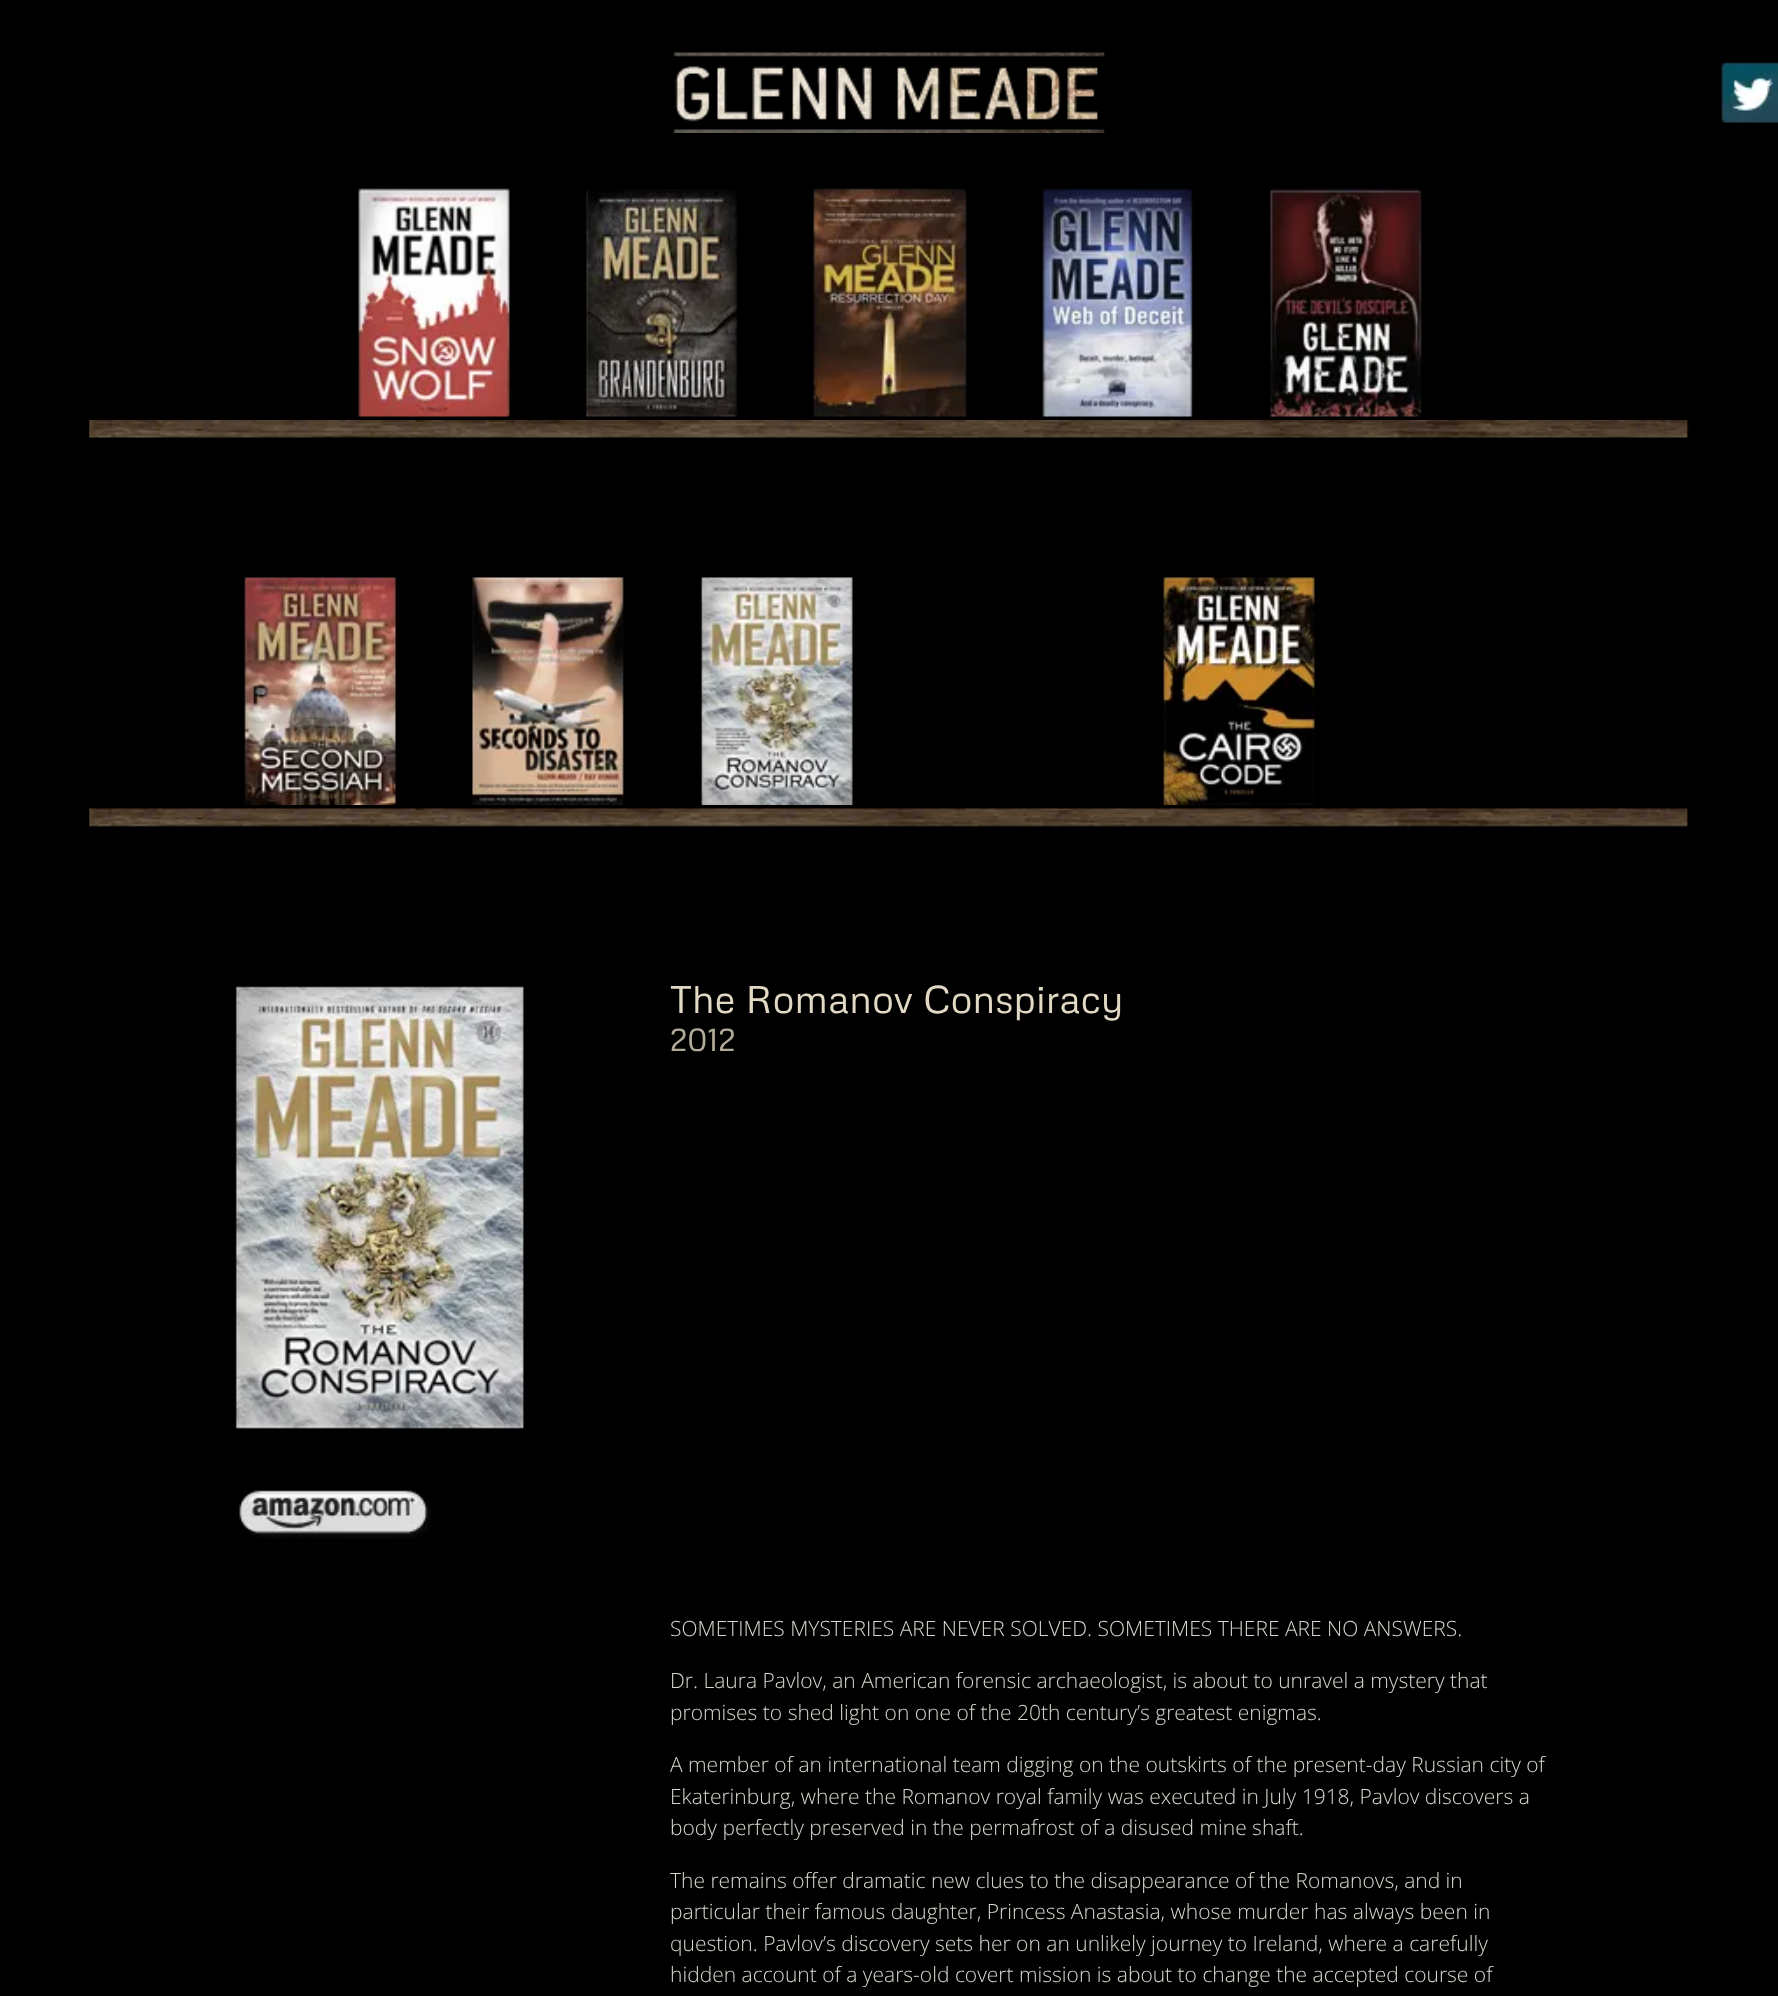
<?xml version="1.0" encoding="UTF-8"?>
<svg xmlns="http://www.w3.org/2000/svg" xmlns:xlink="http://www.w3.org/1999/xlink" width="1778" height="1996">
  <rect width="100%" height="100%" fill="#000000" />
  <image x="673" y="52" width="432" height="81" xlink:href="image1.png" />
  <image x="1717" y="62" width="61" height="61" xlink:href="image2.png" />
  <image x="357" y="188" width="155" height="229" xlink:href="image3.png" />
  <image x="585" y="189" width="153" height="228" xlink:href="image4.png" />
  <image x="813" y="188" width="155" height="229" xlink:href="image5.png" />
  <image x="1040" y="188" width="154" height="229" xlink:href="image6.png" />
  <image x="1270" y="188" width="152" height="229" xlink:href="image7.png" />
  <image x="89" y="420" width="1600" height="24" xlink:href="image8.png" />
  <image x="243" y="577" width="156" height="228" xlink:href="image9.png" />
  <image x="472" y="577" width="154" height="228" xlink:href="image10.png" />
  <image x="701" y="577" width="152" height="228" xlink:href="image11.png" />
  <image x="1162" y="577" width="155" height="228" xlink:href="image12.png" />
  <image x="89" y="808" width="1600" height="24" xlink:href="image13.png" />
  <image x="235" y="986" width="292" height="446" xlink:href="image14.png" />
  <image x="239" y="1490" width="193" height="49" xlink:href="image15.png" />
  <text x="670" y="1013" style="font-family: Metrophobic; font-size: 38.5px; fill: #e1d9c4">The Romanov Conspiracy</text>
  <text x="670" y="1051" style="font-family: Metrophobic; font-size: 31.5px; fill: #b0aa99">2012</text>
  <text x="670" y="1636" style="font-family: Open Sans; font-size: 21px; font-weight: 300; fill: #d6d7cd">SOMETIMES MYSTERIES ARE NEVER SOLVED. SOMETIMES THERE ARE NO ANSWERS.</text>
  <text x="670" y="1688" style="font-family: Open Sans; font-size: 21px; font-weight: 300; fill: #d6d7cd">Dr. Laura Pavlov, an American forensic archaeologist, is about to unravel a mystery that</text>
  <text x="670" y="1720" style="font-family: Open Sans; font-size: 21px; font-weight: 300; fill: #d6d7cd">promises to shed light on one of the 20th century’s greatest enigmas.</text>
  <text x="670" y="1772" style="font-family: Open Sans; font-size: 21px; font-weight: 300; fill: #d6d7cd">A member of an international team digging on the outskirts of the present-day Russian city of</text>
  <text x="670" y="1804" style="font-family: Open Sans; font-size: 21px; font-weight: 300; fill: #d6d7cd">Ekaterinburg, where the Romanov royal family was executed in July 1918, Pavlov discovers a</text>
  <text x="670" y="1835" style="font-family: Open Sans; font-size: 21px; font-weight: 300; fill: #d6d7cd">body perfectly preserved in the permafrost of a disused mine shaft.</text>
  <text x="670" y="1888" style="font-family: Open Sans; font-size: 21px; font-weight: 300; fill: #d6d7cd">The remains offer dramatic new clues to the disappearance of the Romanovs, and in</text>
  <text x="670" y="1919" style="font-family: Open Sans; font-size: 21px; font-weight: 300; fill: #d6d7cd">particular their famous daughter, Princess Anastasia, whose murder has always been in</text>
  <text x="670" y="1951" style="font-family: Open Sans; font-size: 21px; font-weight: 300; fill: #d6d7cd">question. Pavlov’s discovery sets her on an unlikely journey to Ireland, where a carefully</text>
  <text x="670" y="1982" style="font-family: Open Sans; font-size: 21px; font-weight: 300; fill: #d6d7cd">hidden account of a years-old covert mission is about to change the accepted course of</text>
</svg>
